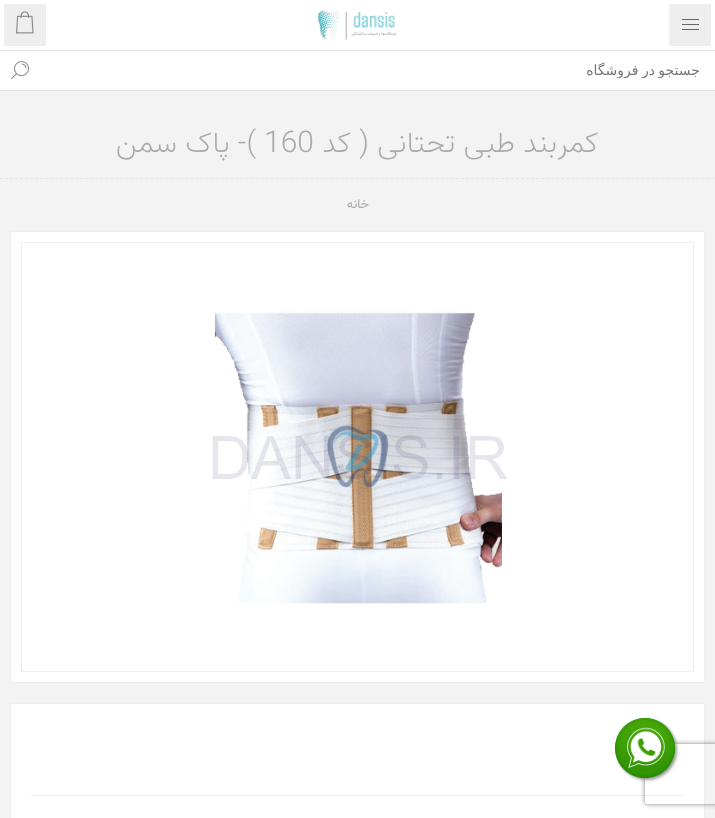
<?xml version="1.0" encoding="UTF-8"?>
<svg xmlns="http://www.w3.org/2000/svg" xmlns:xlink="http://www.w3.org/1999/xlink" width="715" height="818">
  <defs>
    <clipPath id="clip1"><path d="M 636 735 h 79 v 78 h -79 z m 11 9 h 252 c 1 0 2 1 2 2 v 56 c 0 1 -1 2 -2 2 h -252 c -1 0 -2 -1 -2 -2 v -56 c 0 -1 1 -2 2 -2 z" clip-rule="evenodd" /></clipPath>
    <clipPath id="clip2"><rect x="40" y="62" width="660" height="16" /></clipPath>
  </defs>
  <rect width="100%" height="100%" fill="#f3f3f3" />
  <rect x="667" y="2" width="46" height="46" fill="#eeeeee" stroke="#ffffff" stroke-width="4" />
  <rect x="682" y="19" width="17" height="1" fill="#666666" />
  <rect x="682" y="24" width="17" height="1" fill="#666666" />
  <rect x="682" y="29" width="17" height="1" fill="#666666" />
  <rect x="2" y="2" width="46" height="46" fill="#eeeeee" stroke="#ffffff" stroke-width="4" />
  <image x="16" y="11" width="18" height="23" xlink:href="image1.png" />
  <rect y="50" width="715" height="1" fill="#e3e3e3" />
  <rect x="50" width="615" height="50" fill="#ffffff" />
  <image x="317" y="10" width="80" height="30" xlink:href="image2.png" />
  <rect y="51" width="715" height="39" fill="#ffffff" />
  <rect y="90" width="715" height="1" fill="#e3e3e3" />
  <image x="11" y="61" width="18" height="18" xlink:href="image3.png" />
  <path d="M 0 178.5 h 715" fill="none" stroke="#e6e6e6" stroke-dasharray="3 2.01" />
  <rect x="10.5" y="231.5" width="694" height="451" fill="#ffffff" stroke="#eeeeee" />
  <rect x="21.5" y="242.5" width="672" height="429" fill="none" stroke="#eeeeee" />
  <image x="212" y="311" width="295" height="293" xlink:href="image4.png" />
  <rect x="10.5" y="703.5" width="694" height="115" fill="#ffffff" stroke="#eeeeee" />
  <rect x="31" y="795" width="653" height="1" fill="#eeeeee" />
  <rect x="617" y="720" width="60" height="60" rx="30" fill="#999999" filter="blur(1.5px)" />
  <g clip-path="url(#clip1)">
    <rect x="645" y="744" width="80" height="60" rx="2" fill="#808080" filter="blur(2.5px)" />
  </g>
  <circle cx="645" cy="748" r="30" fill="#25d366" />
  <image x="615" y="718" width="60" height="60" xlink:href="image5.png" />
  <g clip-path="url(#clip2)">
    <text x="700" y="75" word-spacing="-1" style="font-family: DejaVu Sans; font-size: 14px; direction: rtl; fill: #757575">جستجو در فروشگاه</text>
  </g>
  <text x="599" y="152" style="font-family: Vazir; font-size: 30px; font-weight: 100; direction: rtl; fill: #aaaaaa">کمربند طبی تحتانی</text>
  <text x="369" y="152" style="font-family: Vazir; font-size: 30px; font-weight: 100; direction: rtl; fill: #aaaaaa">( کد</text>
  <text x="264" y="152" style="font-family: Vazir; font-size: 30px; font-weight: 100; fill: #aaaaaa">160</text>
  <text x="256" y="152" style="font-family: Vazir; font-size: 30px; font-weight: 100; direction: rtl; fill: #aaaaaa">)- پاک سمن</text>
  <text x="369" y="208" style="font-family: Vazir; font-size: 13px; direction: rtl; fill: #aaaaaa">خانه</text>
</svg>
